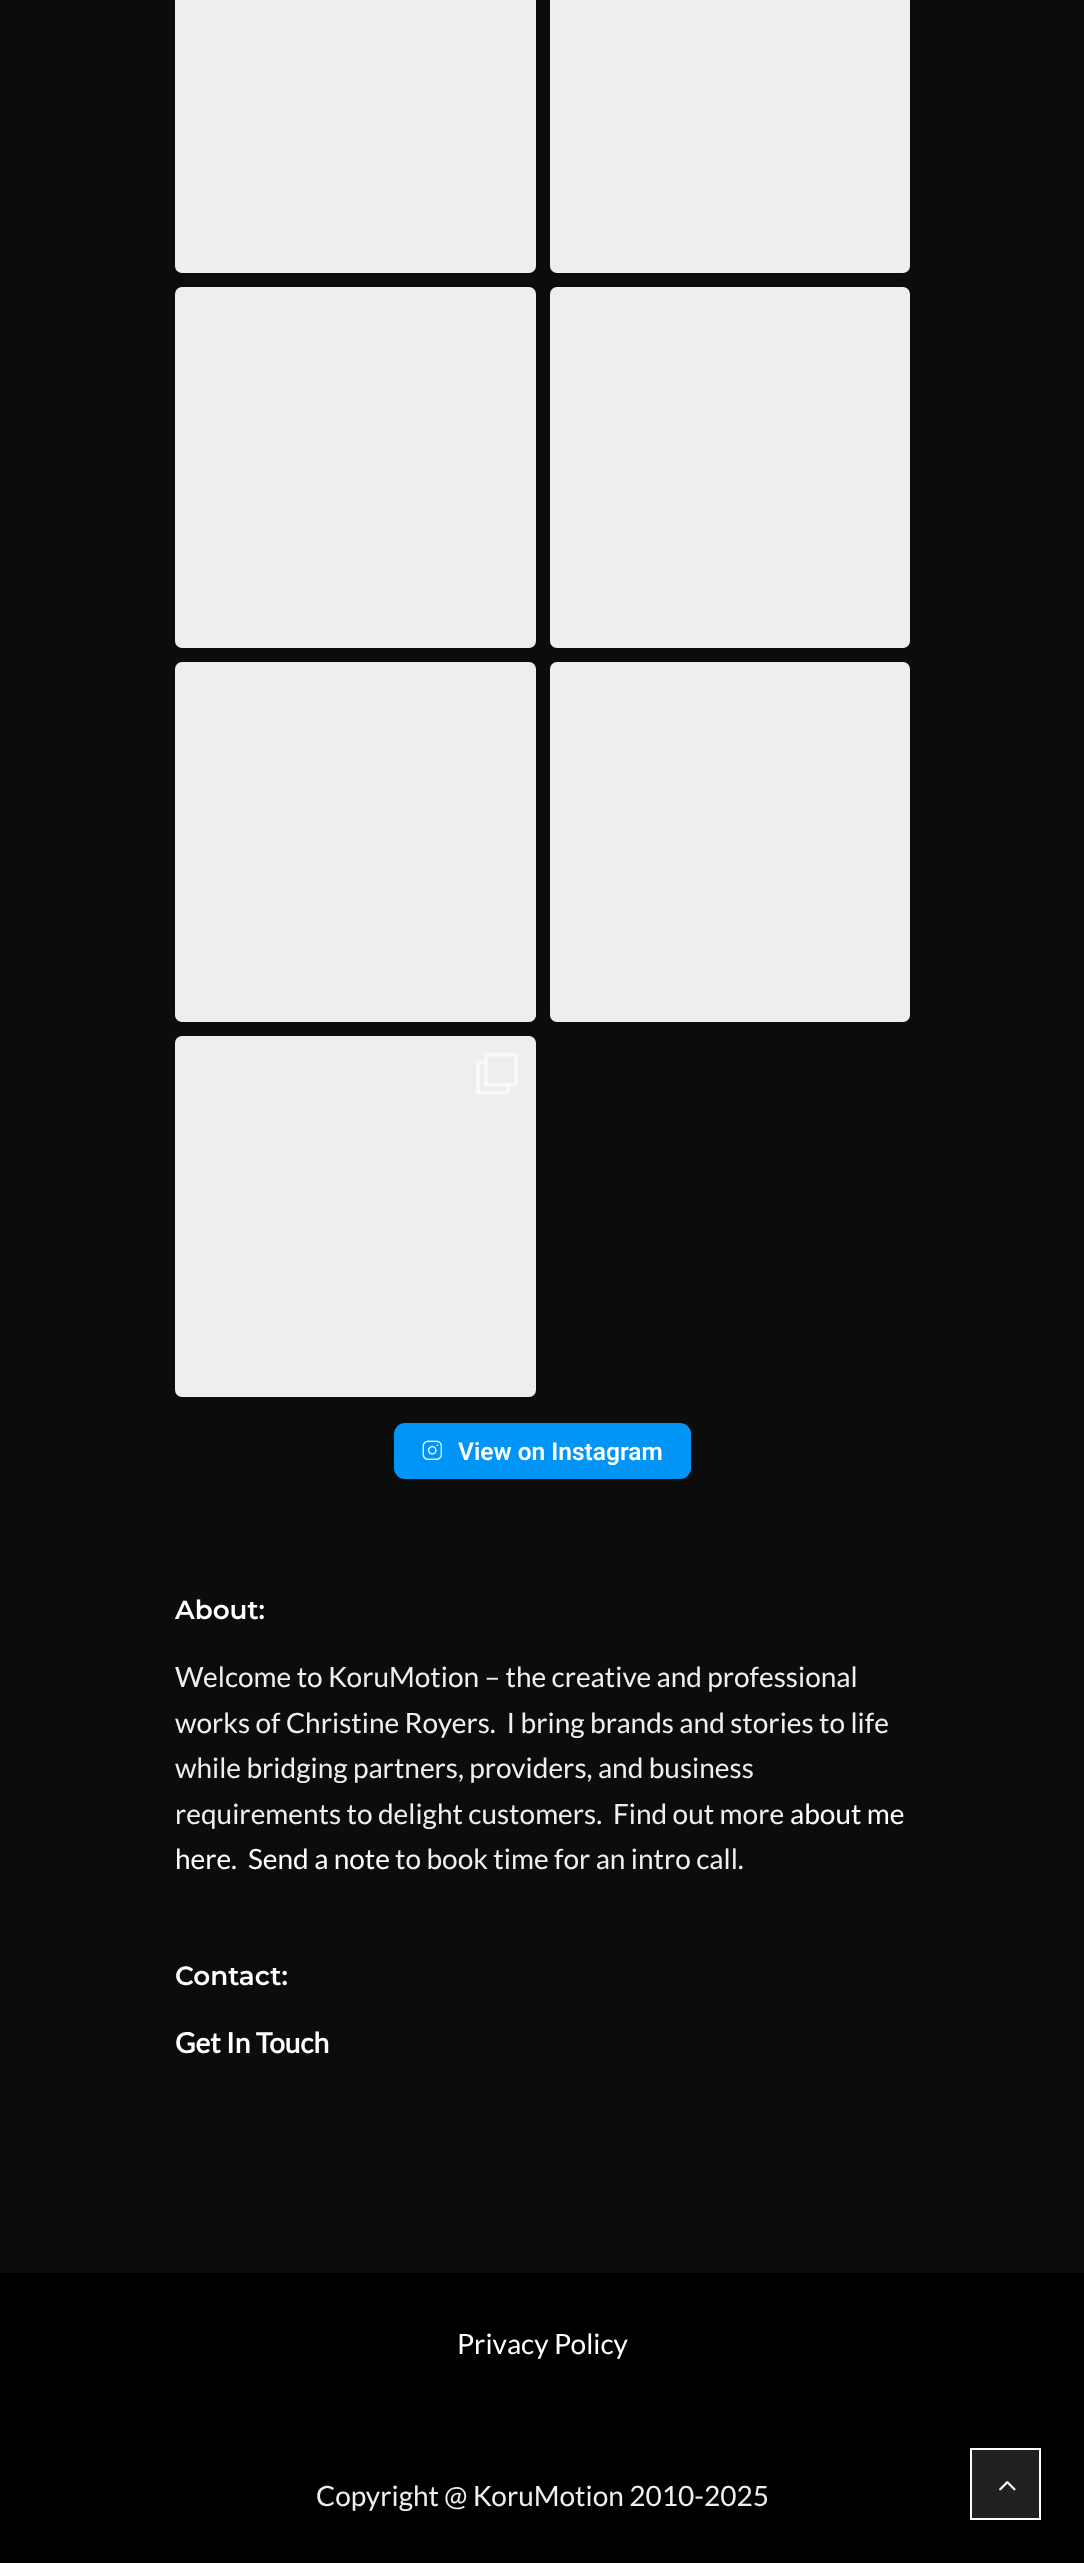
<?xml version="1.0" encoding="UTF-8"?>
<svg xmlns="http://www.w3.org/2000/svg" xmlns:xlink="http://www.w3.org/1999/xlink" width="1084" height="2563">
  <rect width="100%" height="100%" fill="#0c0c0c" />
  <rect x="175" y="-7" width="361" height="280" rx="7" fill="#eeeeee" />
  <rect x="550" y="-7" width="360" height="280" rx="7" fill="#eeeeee" />
  <rect x="175" y="287" width="361" height="361" rx="7" fill="#eeeeee" />
  <rect x="550" y="287" width="360" height="361" rx="7" fill="#eeeeee" />
  <rect x="175" y="662" width="361" height="360" rx="7" fill="#eeeeee" />
  <rect x="550" y="662" width="360" height="360" rx="7" fill="#eeeeee" />
  <rect x="175" y="1036" width="361" height="361" rx="7" fill="#eeeeee" />
  <image x="476" y="1052" width="42" height="43" xlink:href="image1.png" />
  <rect x="394" y="1423" width="297" height="56" rx="11" fill="#0095f6" />
  <image x="422" y="1440" width="20" height="20" xlink:href="image2.png" />
  <rect y="2273" width="1084" height="290" fill="#000000" />
  <rect x="971" y="2449" width="69" height="70" fill="#212121" stroke="#ffffff" stroke-width="2" />
  <image x="999" y="2481" width="17" height="10" xlink:href="image3.png" />
  <text x="458" y="1460" style="font-family: Roboto; font-size: 24.5px; font-weight: 600; fill: #ffffff">View on Instagram</text>
  <text x="175" y="1619" style="font-family: Montserrat; font-size: 26.25px; font-weight: 600; fill: #ffffff">About:</text>
  <text x="175" y="1687" style="font-family: Lato; font-size: 28px; fill: #efefef">Welcome to KoruMotion – the creative and professional</text>
  <text x="175" y="1733" style="font-family: Lato; font-size: 28px; fill: #efefef" xml:space="preserve">works of Christine Royers.  I bring brands and stories to life</text>
  <text x="175" y="1778" style="font-family: Lato; font-size: 28px; fill: #efefef">while bridging partners, providers, and business</text>
  <text x="175" y="1824" style="font-family: Lato; font-size: 28px; fill: #efefef" xml:space="preserve">requirements to delight customers.  Find out more</text>
  <text x="790" y="1824" style="font-family: Lato; font-size: 28px; fill: #ffffff">about me</text>
  <text x="175" y="1869" style="font-family: Lato; font-size: 28px; fill: #ffffff">here</text>
  <text x="231" y="1869" style="font-family: Lato; font-size: 28px; fill: #efefef">.</text>
  <text x="248" y="1869" style="font-family: Lato; font-size: 28px; fill: #ffffff">Send a note</text>
  <text x="395" y="1869" style="font-family: Lato; font-size: 28px; fill: #efefef">to book time for an intro call.</text>
  <text x="175" y="1985" style="font-family: Montserrat; font-size: 26.25px; font-weight: 600; fill: #ffffff">Contact:</text>
  <text x="175" y="2053" style="font-family: Lato; font-size: 28px; font-weight: bold; fill: #ffffff">Get In Touch</text>
  <text x="457" y="2354" style="font-family: Lato; font-size: 28px; fill: #ffffff">Privacy Policy</text>
  <text x="316" y="2506" style="font-family: Lato; font-size: 28px; fill: #efefef">Copyright @ KoruMotion 2010-2025</text>
</svg>
